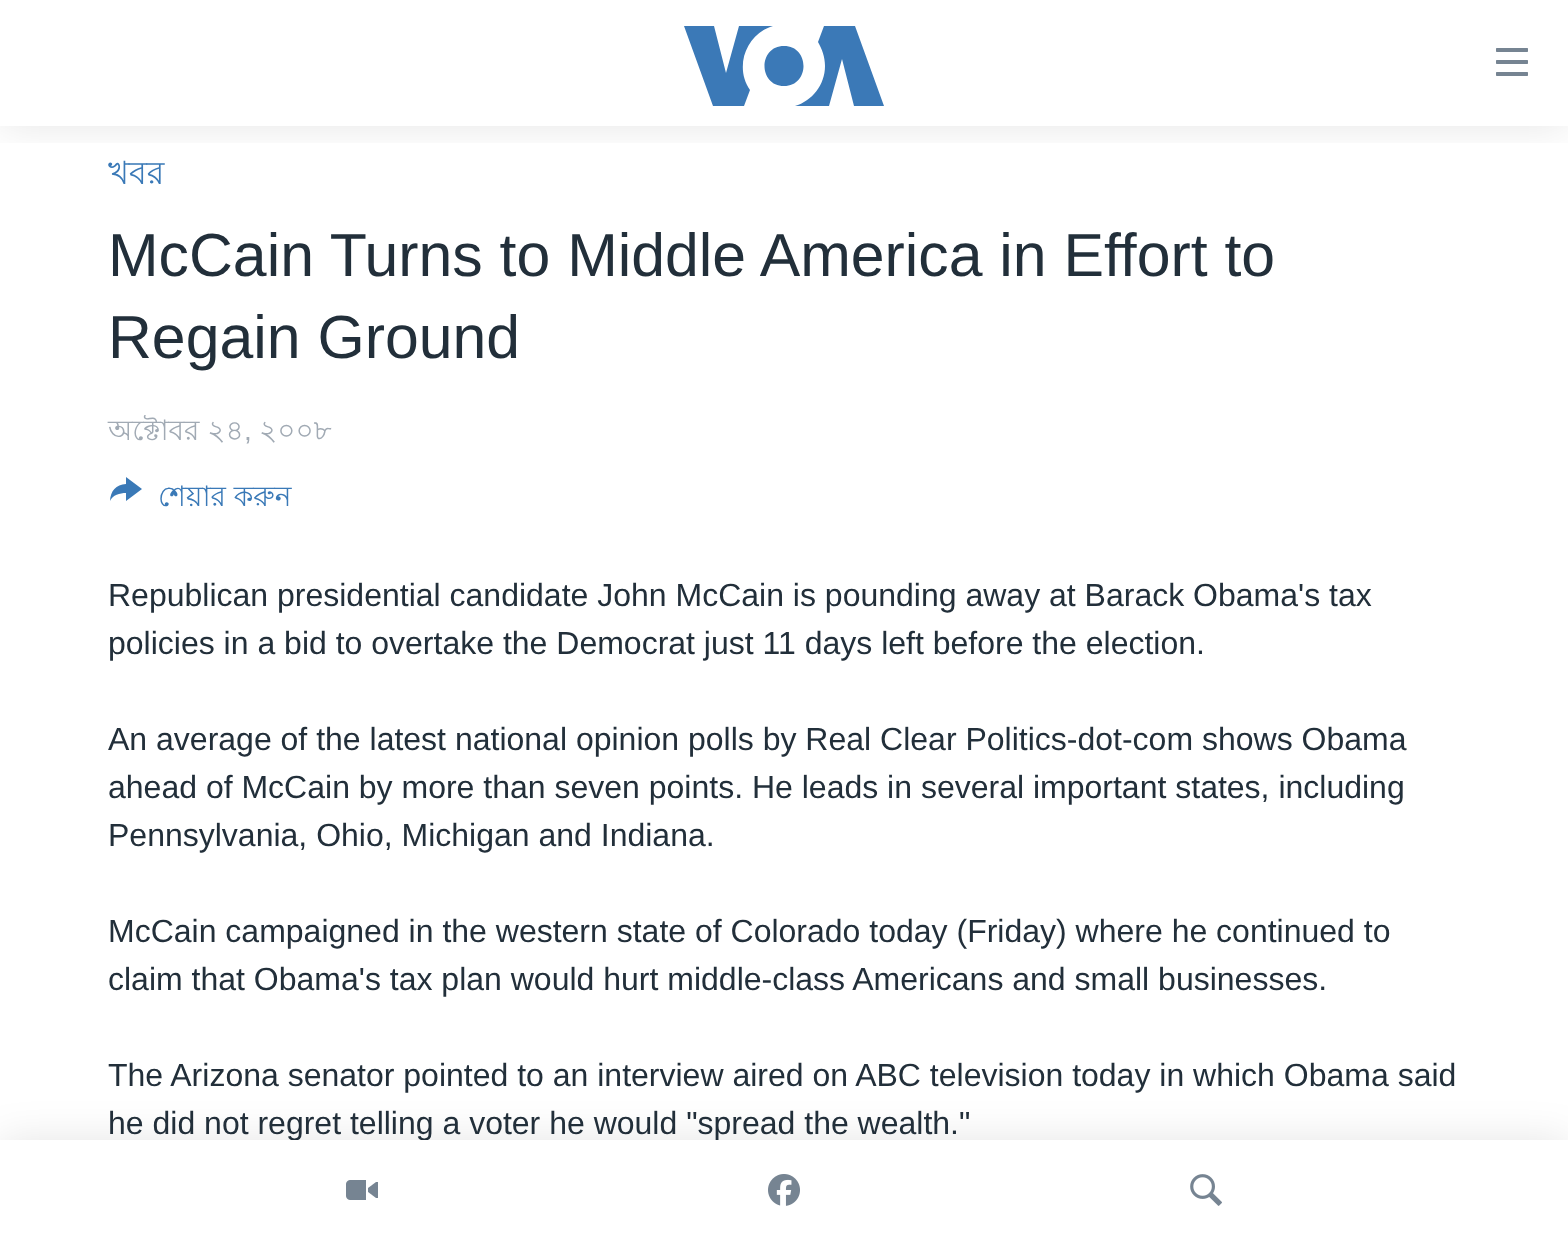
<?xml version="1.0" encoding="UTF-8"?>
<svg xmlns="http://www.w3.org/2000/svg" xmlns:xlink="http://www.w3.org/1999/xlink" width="1568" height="1240">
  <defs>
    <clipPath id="clip1"><rect x="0" y="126" width="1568" height="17" /></clipPath>
  </defs>
  <rect width="100%" height="100%" fill="#ffffff" />
  <g clip-path="url(#clip1)">
    <rect width="1568" height="126" fill="#000000" fill-opacity="0.1" filter="blur(20px)" />
  </g>
  <path d="M 750 90 l -6 16 h -31 l -29 -80 h 30 l 12 47 l 13 -47 h 34 c -27 8 -39 41 -23 64 z m 34 -44 c -26 0 -26 40 0 40 c 26 0 26 -40 0 -40 z m 41 20 c 0 19 -13 35 -30 40 h 34 l 13 -47 l 12 47 h 30 l -29 -80 h -31 l -6 16 c 4 7 7 15 7 24 z" fill="#3b79b7" />
  <image x="1496" y="48" width="32" height="28" xlink:href="image1.png" />
  <rect y="1140" width="1568" height="100" fill="#000000" fill-opacity="0.1" filter="blur(20px)" />
  <path d="M 110 501 c 0.5 -10 6 -16.5 16 -17 v -7 l 16 12 l -16 12 v -8 c -6 0 -13.5 2 -16 8 z" fill="#3a79b7" />
  <text x="108" y="184" style="font-family: Lohit Bengali; font-size: 32px; fill: #3a79b7">খবর</text>
  <text x="108" y="276" style="font-family: Liberation Sans; font-size: 60.75px; fill: #222f3a">McCain Turns to Middle America in Effort to</text>
  <text x="108" y="358" style="font-family: Liberation Sans; font-size: 60.75px; fill: #222f3a">Regain Ground</text>
  <text x="108" y="440" style="font-family: Lohit Bengali; font-size: 28px; fill: #a1aab4">অক্টোবর ২৪</text>
  <text x="244" y="440" style="font-family: Liberation Sans; font-size: 28px; fill: #a1aab4">,</text>
  <text x="259" y="440" style="font-family: Lohit Bengali; font-size: 28px; fill: #a1aab4">২০০৮</text>
  <text x="158" y="506" style="font-family: Lohit Bengali; font-size: 28px; fill: #3a79b7">শেয়ার করুন</text>
  <text x="108" y="606" style="font-family: Liberation Sans; font-size: 32px; fill: #222f3a">Republican presidential candidate John McCain is pounding away at Barack Obama's tax</text>
  <text x="108" y="654" style="font-family: Liberation Sans; font-size: 32px; fill: #222f3a">policies in a bid to overtake the Democrat just 11 days left before the election.</text>
  <text x="108" y="750" style="font-family: Liberation Sans; font-size: 32px; fill: #222f3a">An average of the latest national opinion polls by Real Clear Politics-dot-com shows Obama</text>
  <text x="108" y="798" style="font-family: Liberation Sans; font-size: 32px; fill: #222f3a">ahead of McCain by more than seven points. He leads in several important states, including</text>
  <text x="108" y="846" style="font-family: Liberation Sans; font-size: 32px; fill: #222f3a">Pennsylvania, Ohio, Michigan and Indiana.</text>
  <text x="108" y="942" style="font-family: Liberation Sans; font-size: 32px; fill: #222f3a">McCain campaigned in the western state of Colorado today (Friday) where he continued to</text>
  <text x="108" y="990" style="font-family: Liberation Sans; font-size: 32px; fill: #222f3a">claim that Obama's tax plan would hurt middle-class Americans and small businesses.</text>
  <text x="108" y="1086" style="font-family: Liberation Sans; font-size: 32px; fill: #222f3a">The Arizona senator pointed to an interview aired on ABC television today in which Obama said</text>
  <text x="108" y="1134" style="font-family: Liberation Sans; font-size: 32px; fill: #222f3a">he did not regret telling a voter he would "spread the wealth."</text>
  <rect y="1140" width="1568" height="100" fill="#ffffff" />
  <image x="1190" y="1174" width="32" height="32" xlink:href="image4.png" />
  <image x="768" y="1174" width="32" height="32" xlink:href="image3.png" />
  <image x="346" y="1180" width="32" height="20" xlink:href="image2.png" />
</svg>
